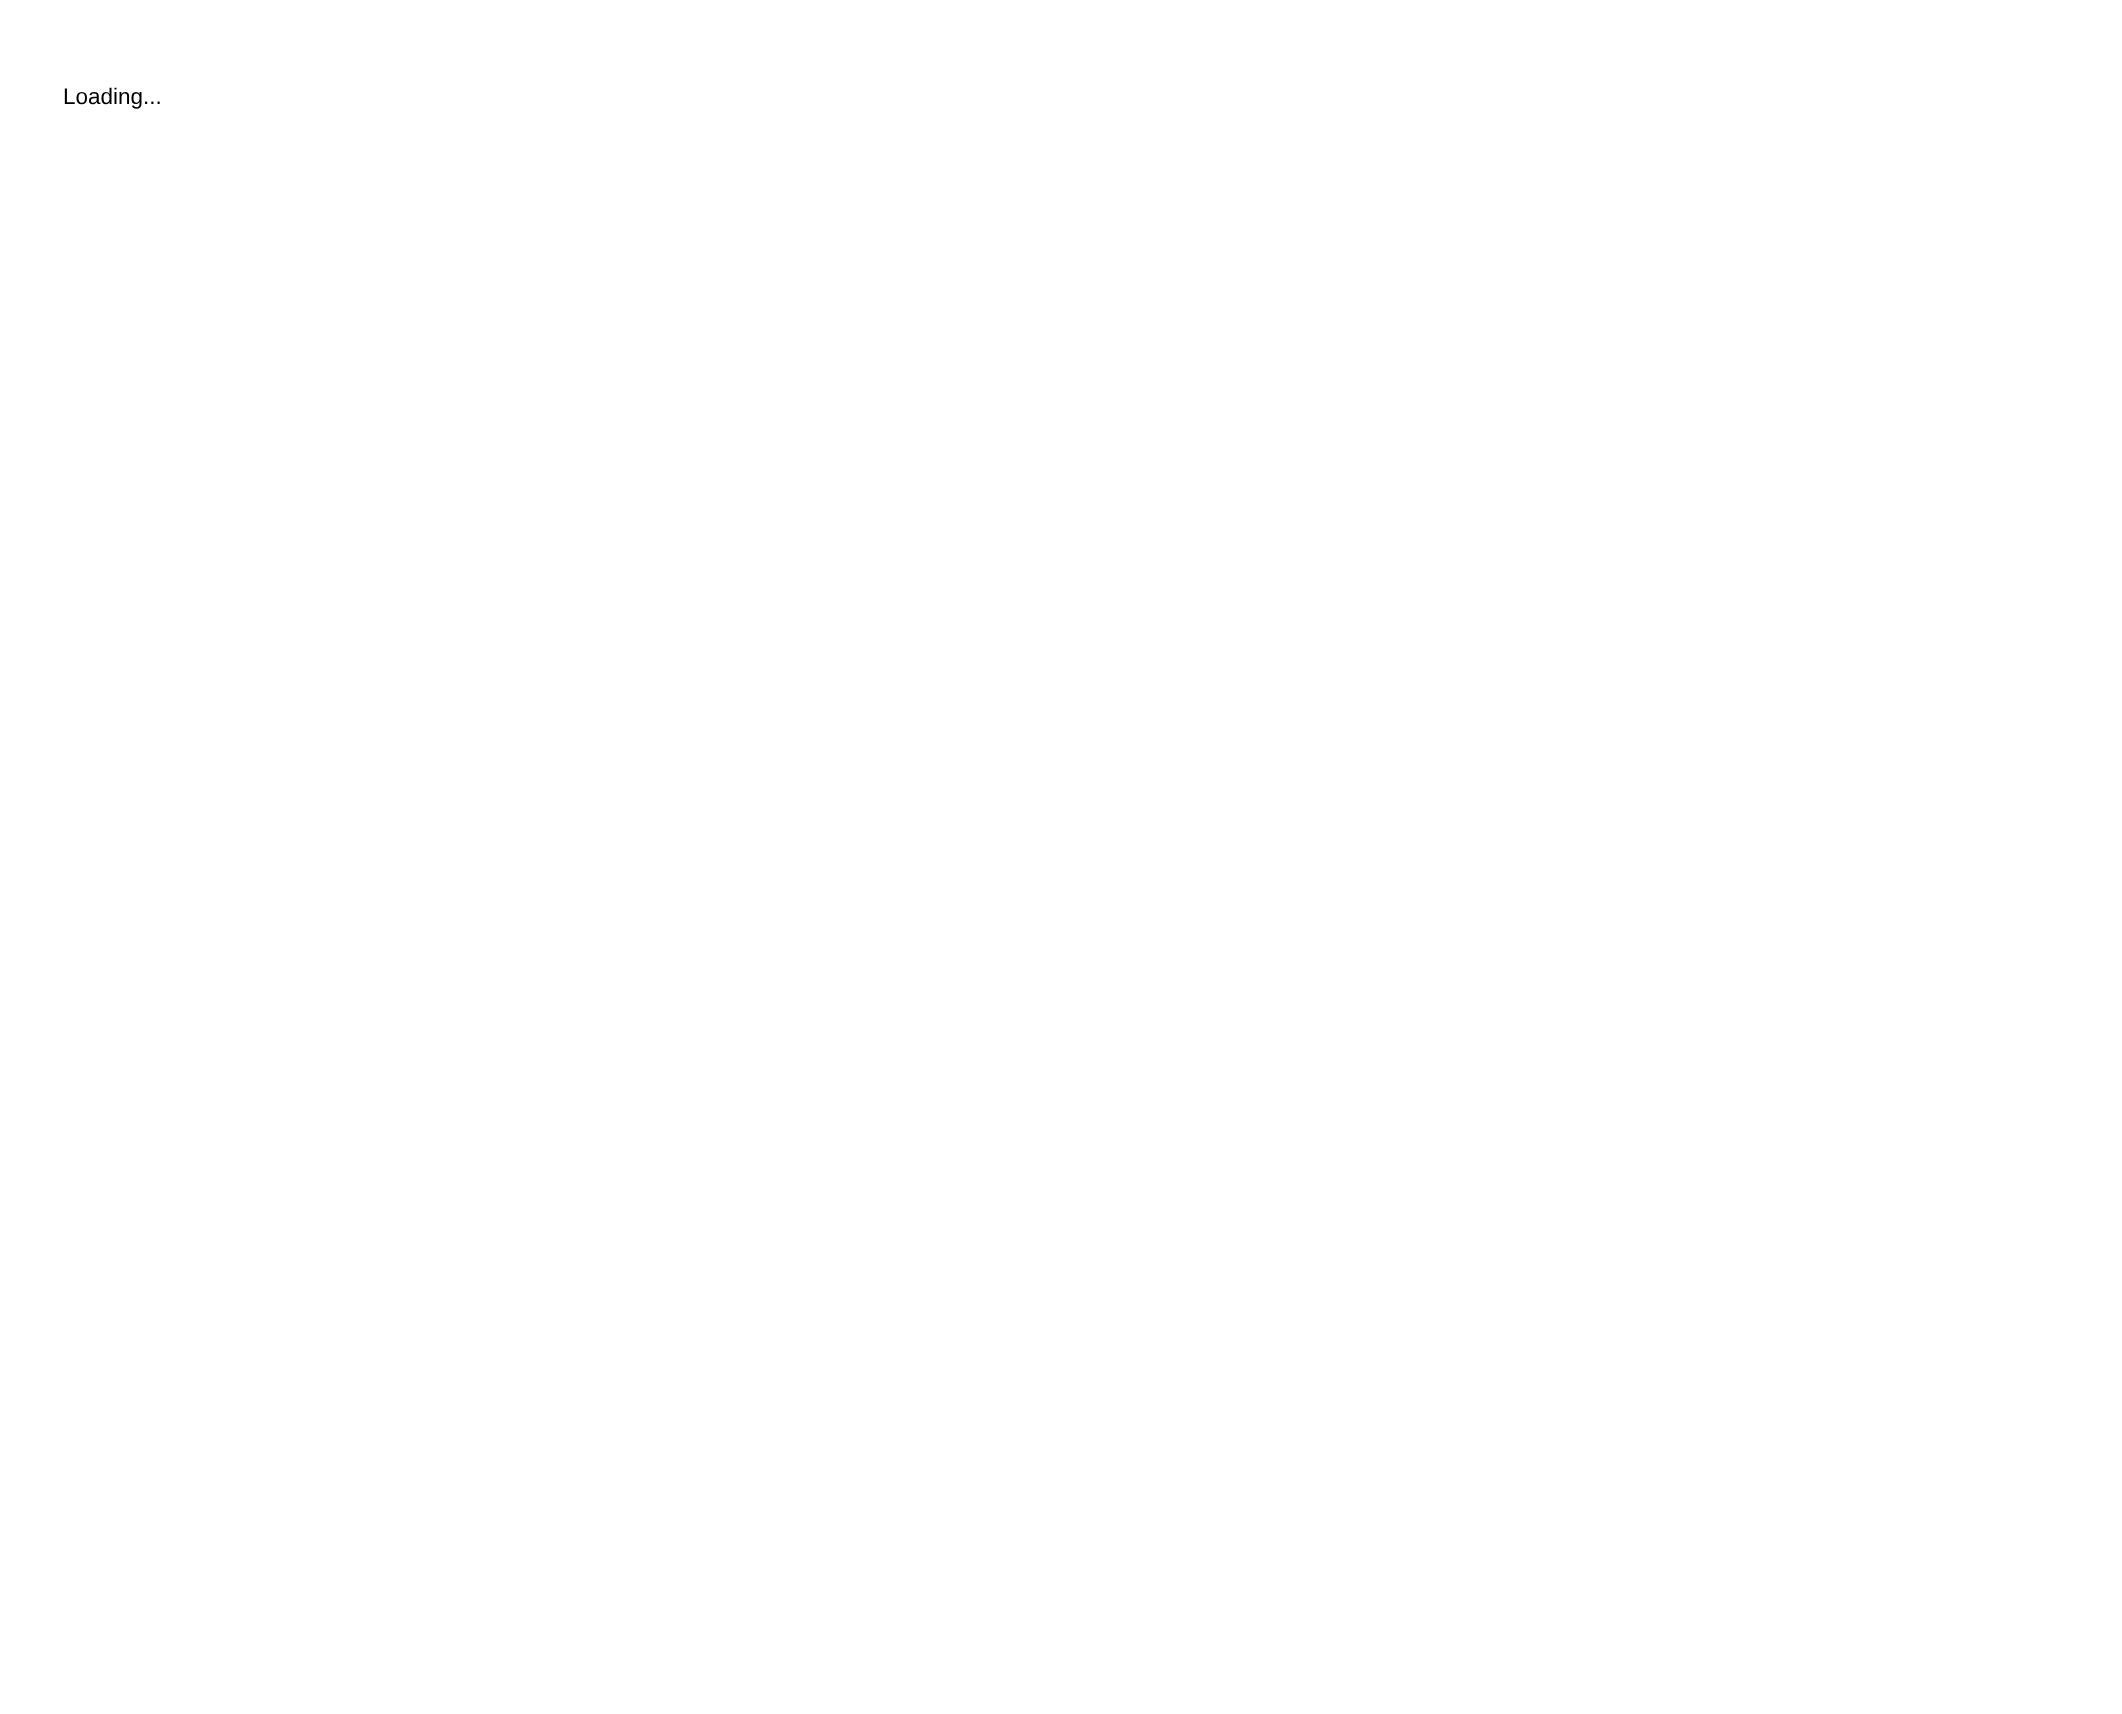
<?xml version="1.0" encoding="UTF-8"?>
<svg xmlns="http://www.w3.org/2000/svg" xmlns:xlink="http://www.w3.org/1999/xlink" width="2122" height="1714">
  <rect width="100%" height="100%" fill="#ffffff" />
  <text x="63" y="104" style="font-family: Liberation Sans; font-size: 22.5px; fill: #000000">Loading...</text>
</svg>
